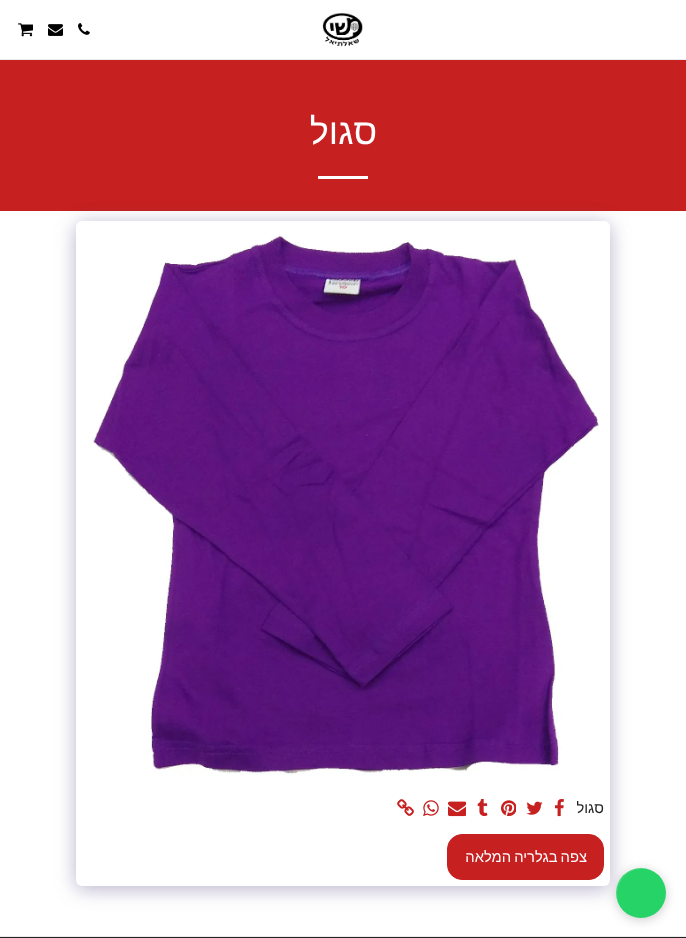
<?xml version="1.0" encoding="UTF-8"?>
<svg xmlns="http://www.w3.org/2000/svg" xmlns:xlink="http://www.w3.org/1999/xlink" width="686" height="938">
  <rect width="100%" height="100%" fill="#ffffff" />
  <rect y="59" width="686" height="1" fill="#ebebeb" />
  <image x="322" y="12" width="41" height="35" xlink:href="image1.png" />
  <image x="78" y="23" width="12" height="12" xlink:href="image2.png" />
  <image x="48" y="24" width="15" height="12" xlink:href="image3.png" />
  <image x="18" y="23" width="15" height="14" xlink:href="image4.png" />
  <rect y="60" width="686" height="151" fill="#c62020" />
  <rect x="318" y="176" width="50" height="3" fill="#ffffff" />
  <rect x="76" y="224" width="534" height="665" rx="6" fill="#4d3f7a" fill-opacity="0.4" filter="blur(10px)" />
  <rect x="76" y="221" width="534" height="665" rx="6" fill="#ffffff" />
  <image x="92" y="234" width="507" height="542" xlink:href="image5.png" />
  <image x="554" y="799" width="10" height="18" xlink:href="image6.png" />
  <image x="526" y="801" width="17" height="14" xlink:href="image7.png" />
  <image x="501" y="800" width="15" height="17" xlink:href="image8.png" />
  <image x="477" y="799" width="11" height="18" xlink:href="image9.png" />
  <image x="448" y="801" width="18" height="16" xlink:href="image10.png" />
  <image x="423" y="800" width="16" height="16" xlink:href="image11.png" />
  <image x="397" y="799" width="17" height="17" xlink:href="image12.png" />
  <rect x="447.5" y="834.5" width="156" height="45" rx="14.5" fill="#c62020" stroke="#c62020" />
  <rect y="937" width="686" height="1" fill="#222222" />
  <rect y="936" width="686" height="1" fill="#ebebeb" />
  <rect x="616" y="870" width="50" height="50" rx="25" fill="#808080" fill-opacity="0.4" filter="blur(5.5px)" />
  <circle cx="641" cy="893" r="25" fill="#26d367" />
  <path d="M 642 869 c 5 0 9 1 13 3 c -24 -15 -51 15 -34 37 c -9 -15 -2 -40 21 -40 z" fill="#ffffff" fill-opacity="0.15" />
  <text x="377" y="144" style="font-family: Liberation Sans; font-size: 36px; direction: rtl; fill: #ffffff">סגול</text>
  <text x="604" y="813" style="font-family: Liberation Sans; font-size: 14.75px; direction: rtl; fill: #252525">סגול</text>
  <text x="587" y="862" word-spacing="-1" style="font-family: Liberation Sans; font-size: 14.75px; direction: rtl; fill: #ffffff">צפה בגלריה המלאה</text>
</svg>
